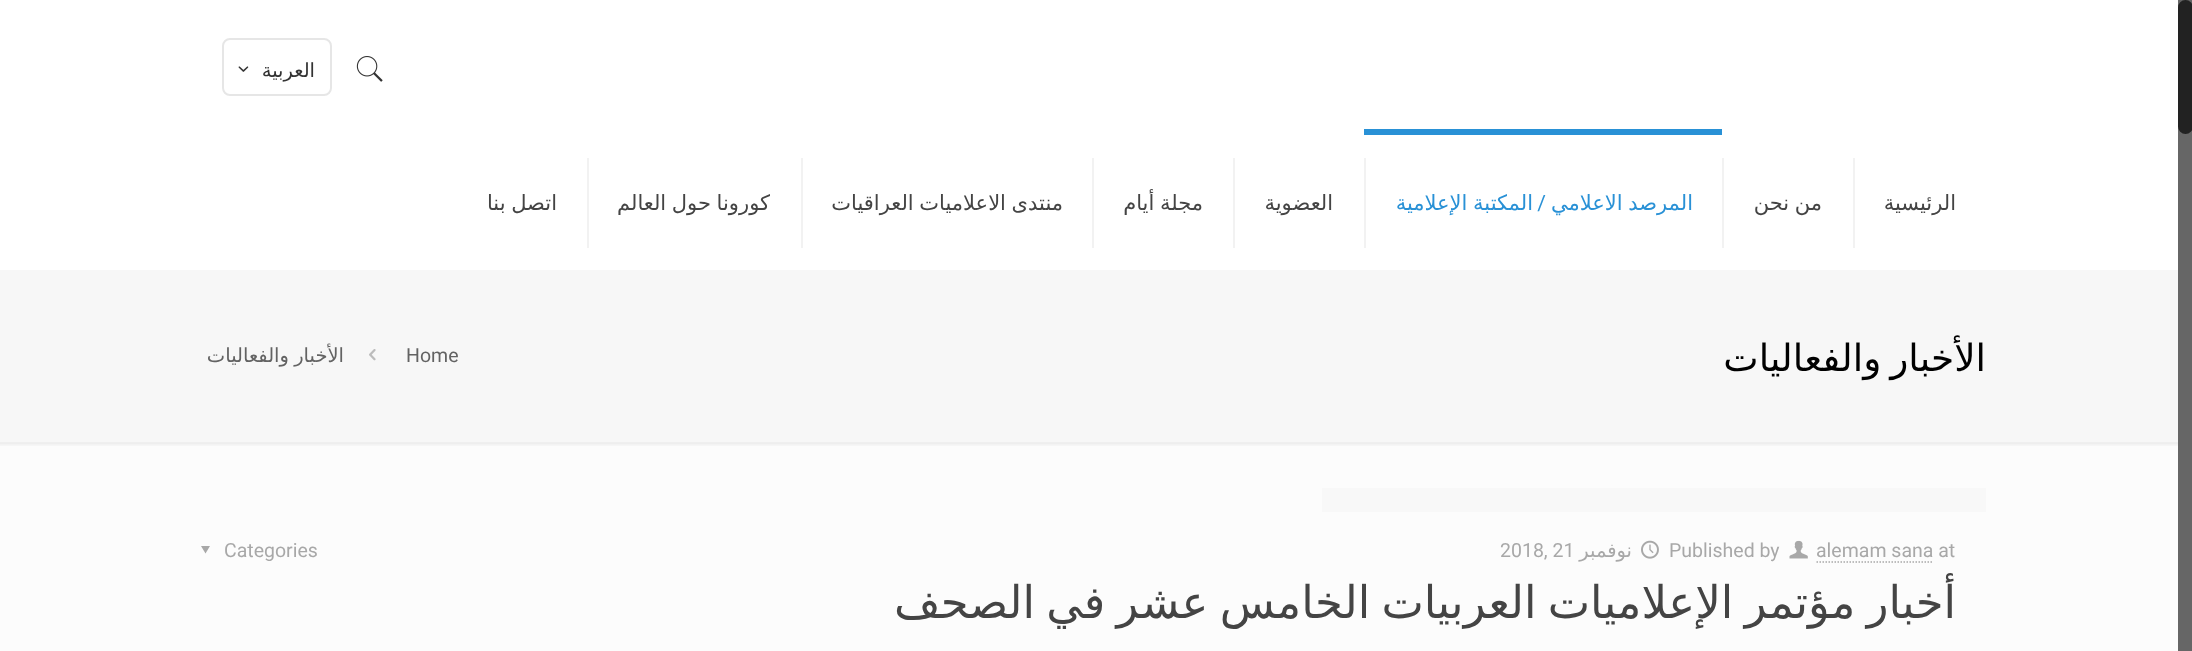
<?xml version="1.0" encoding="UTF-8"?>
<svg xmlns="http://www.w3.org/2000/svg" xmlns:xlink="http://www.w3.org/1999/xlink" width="2192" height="651">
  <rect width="100%" height="100%" fill="#fcfcfc" />
  <rect x="2178" width="14" height="651" fill="#666666" />
  <rect x="2178" width="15" height="134" rx="7.5" fill="#222222" />
  <rect width="2178" height="270" fill="#ffffff" />
  <image x="356" y="56" width="27" height="26" xlink:href="image1.png" />
  <rect x="223" y="39" width="108" height="56" rx="7" fill="none" stroke="#e6e6e6" stroke-width="2" />
  <image x="238" y="66" width="11" height="6" xlink:href="image2.png" />
  <rect x="1853" y="158" width="2" height="90" fill="#f2f2f2" />
  <rect x="1722" y="158" width="2" height="90" fill="#f2f2f2" />
  <rect x="1364" y="129" width="358" height="6" fill="#2991d6" />
  <rect x="1364" y="158" width="2" height="90" fill="#f2f2f2" />
  <rect x="1233" y="158" width="2" height="90" fill="#f2f2f2" />
  <rect x="1092" y="158" width="2" height="90" fill="#f2f2f2" />
  <rect x="801" y="158" width="2" height="90" fill="#f2f2f2" />
  <rect x="587" y="158" width="2" height="90" fill="#f2f2f2" />
  <rect y="270" width="2178" height="173" fill="#f7f7f7" />
  <image x="369" y="349" width="7" height="12" xlink:href="image3.png" />
  <image x="0" y="442" width="2178" height="4" xlink:href="image4.png" />
  <rect x="1322" y="488" width="664" height="24" fill="#f8f8f8" />
  <path d="M 1816.5 562 h 117" fill="none" stroke="#a8a8a8" stroke-width="1.5" stroke-dasharray="1.5 1.5" />
  <image x="1789" y="540" width="19" height="19" xlink:href="image5.png" />
  <image x="1641" y="540" width="18" height="19" xlink:href="image6.png" />
  <path d="M 210 546 l -4.5 7.5 l -4.5 -7.5 z" fill="#a8a8a8" />
  <text x="315" y="77" style="font-family: DejaVu Sans; font-size: 19.5px; direction: rtl; fill: #333333">العربية</text>
  <text x="1956" y="210" style="font-family: DejaVu Sans; font-size: 21px; direction: rtl; fill: #444444">الرئيسية</text>
  <text x="1822" y="210" word-spacing="-1" style="font-family: DejaVu Sans; font-size: 21px; direction: rtl; fill: #444444">من نحن</text>
  <text x="1693" y="210" word-spacing="-1" style="font-family: DejaVu Sans; font-size: 21px; direction: rtl; fill: #2991d6">المرصد الاعلامي</text>
  <text x="1546" y="210" style="font-family: Roboto; font-size: 21px; direction: rtl; fill: #2991d6">/</text>
  <text x="1533" y="210" word-spacing="-1" style="font-family: DejaVu Sans; font-size: 21px; direction: rtl; fill: #2991d6">المكتبة الإعلامية</text>
  <text x="1333" y="210" style="font-family: DejaVu Sans; font-size: 21px; direction: rtl; fill: #444444">العضوية</text>
  <text x="1203" y="210" word-spacing="-1" style="font-family: DejaVu Sans; font-size: 21px; direction: rtl; fill: #444444">مجلة أيام</text>
  <text x="1063" y="210" word-spacing="-1" style="font-family: DejaVu Sans; font-size: 21px; direction: rtl; fill: #444444">منتدى الاعلاميات العراقيات</text>
  <text x="770" y="210" word-spacing="-1" style="font-family: DejaVu Sans; font-size: 21px; direction: rtl; fill: #444444">كورونا حول العالم</text>
  <text x="557" y="210" word-spacing="-1" style="font-family: DejaVu Sans; font-size: 21px; direction: rtl; fill: #444444">اتصل بنا</text>
  <text x="1986" y="371" word-spacing="-3" style="font-family: DejaVu Sans; font-size: 37.5px; direction: rtl; fill: #000000">الأخبار والفعاليات</text>
  <text x="406" y="362" style="font-family: Roboto; font-size: 19.5px; fill: #636363">Home</text>
  <text x="344" y="362" word-spacing="-1" style="font-family: DejaVu Sans; font-size: 19.5px; direction: rtl; fill: #636363">الأخبار والفعاليات</text>
  <text x="1816" y="557" style="font-family: Roboto; font-size: 19.5px; fill: #a8a8a8">alemam sana at</text>
  <text x="1669" y="557" style="font-family: Roboto; font-size: 19.5px; fill: #a8a8a8">Published by</text>
  <text x="1632" y="557" style="font-family: DejaVu Sans; font-size: 19.5px; direction: rtl; fill: #a8a8a8">نوفمبر</text>
  <text x="1500" y="557" style="font-family: Roboto; font-size: 19.5px; fill: #a8a8a8">2018, 21</text>
  <text x="224" y="557" style="font-family: Roboto; font-size: 19.5px; fill: #a8a8a8">Categories</text>
  <text x="1956" y="618" word-spacing="-3" style="font-family: DejaVu Sans; font-size: 45px; direction: rtl; fill: #444444">أخبار مؤتمر الإعلاميات العربيات الخامس عشر في الصحف</text>
</svg>
